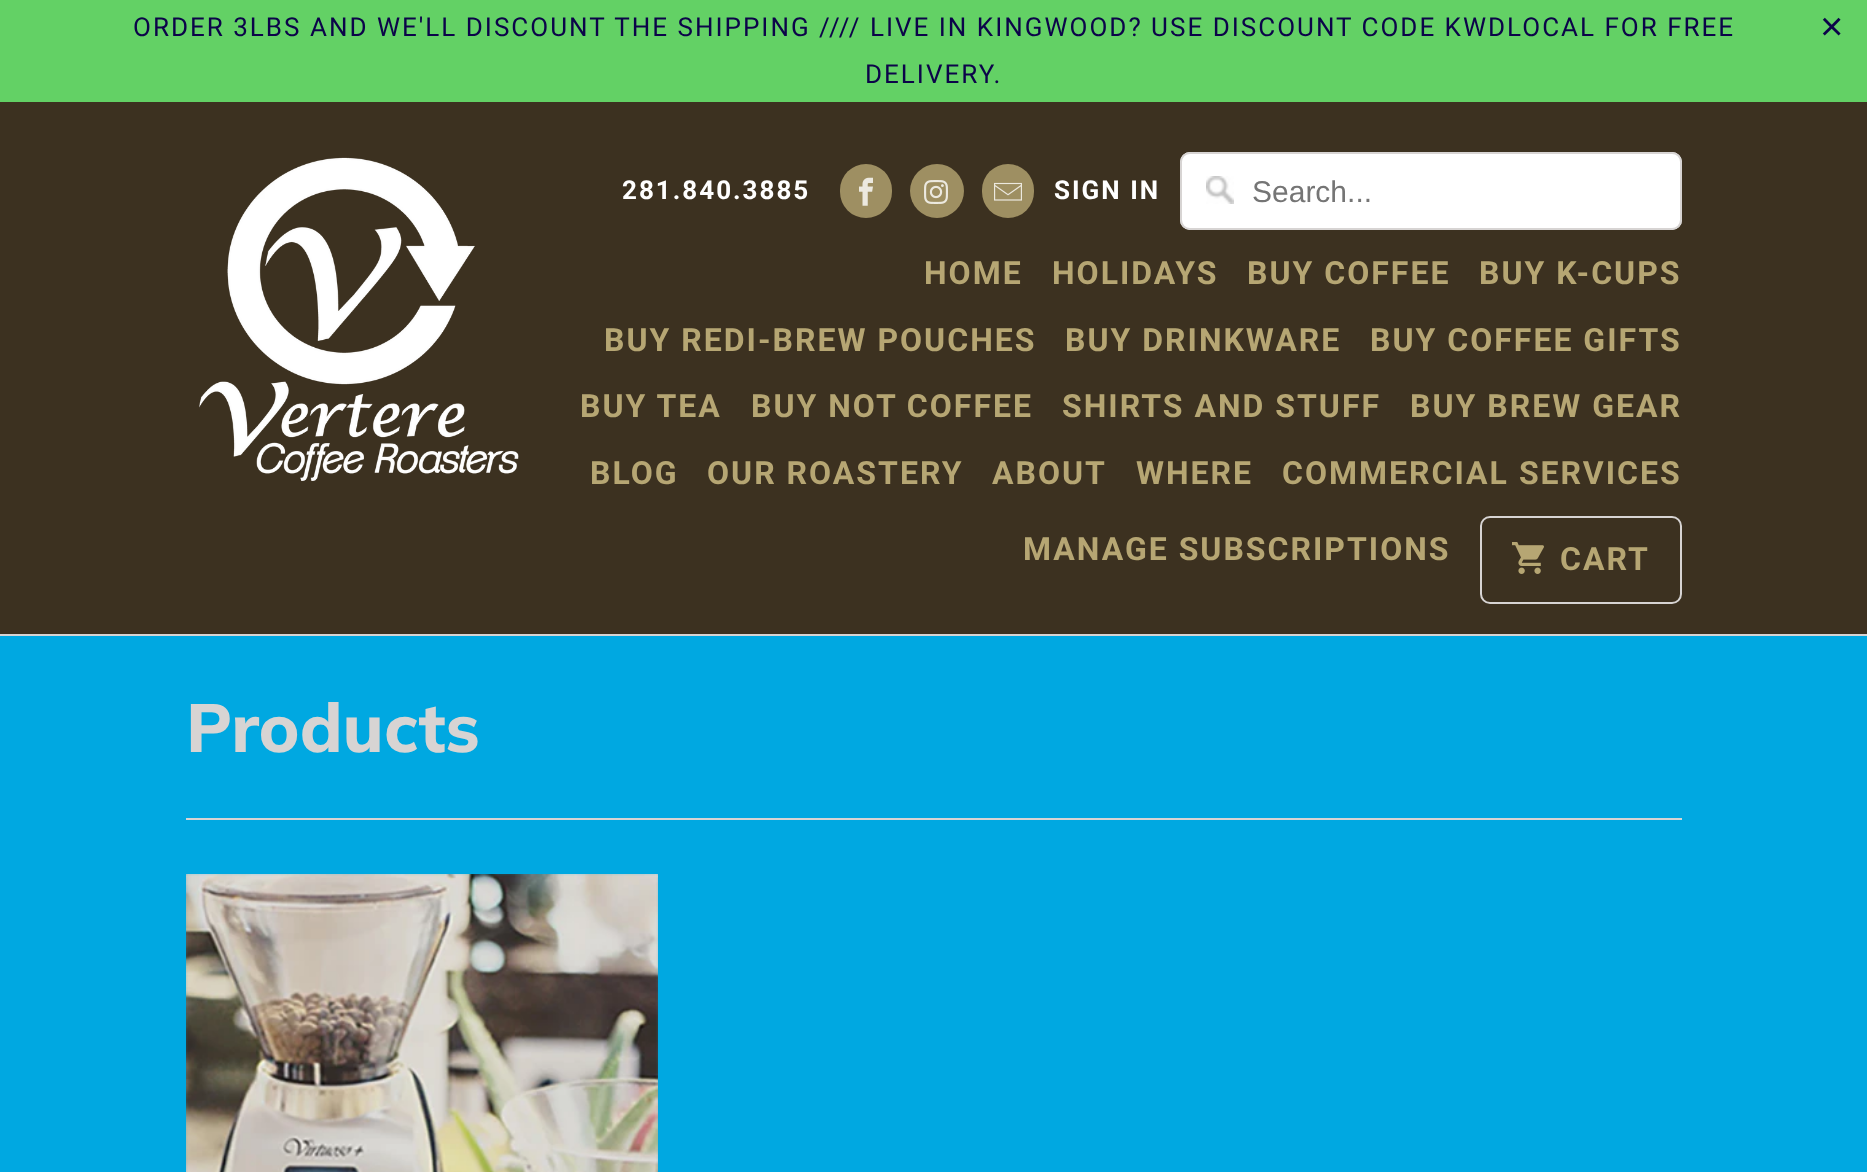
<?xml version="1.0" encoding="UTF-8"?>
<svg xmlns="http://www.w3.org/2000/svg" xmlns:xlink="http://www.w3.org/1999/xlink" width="1867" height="1172">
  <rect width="100%" height="100%" fill="#00a8e1" />
  <rect width="1867" height="102" fill="#63d165" />
  <rect y="102" width="1867" height="532" fill="#3c3120" />
  <rect y="634" width="1867" height="2" fill="#d7d4d3" />
  <image x="199" y="157" width="320" height="324" xlink:href="image1.png" />
  <rect x="840" y="164" width="52" height="54" rx="26" fill="#9e8f62" />
  <image x="859" y="177" width="14" height="29" xlink:href="image2.png" />
  <circle cx="937" cy="191" r="27" fill="#9e8f62" />
  <image x="924" y="180" width="24" height="24" xlink:href="image3.png" />
  <rect x="982" y="164" width="52" height="54" rx="26" fill="#9e8f62" />
  <image x="994" y="182" width="28" height="19" xlink:href="image4.png" />
  <rect x="1180" y="152" width="502" height="78" rx="10" fill="#ffffff" />
  <image x="1206" y="176" width="28" height="28" xlink:href="image5.png" />
  <rect x="1181" y="153" width="500" height="76" rx="9" fill="none" stroke="#d7d4d3" stroke-width="2" />
  <rect x="1481" y="517" width="200" height="86" rx="9" fill="none" stroke="#d7d4d3" stroke-width="2" />
  <image x="1512" y="542" width="32" height="32" xlink:href="image6.png" />
  <rect x="186" y="818" width="1496" height="2" fill="#d7d4d3" />
  <image x="186" y="874" width="472" height="298" xlink:href="image7.png" />
  <text x="133" y="36" style="font-family: Roboto; font-size: 26px; letter-spacing: 2px; fill: #0c0449">ORDER 3LBS AND WE'LL DISCOUNT THE SHIPPING //// LIVE IN KINGWOOD? USE DISCOUNT CODE KWDLOCAL FOR FREE</text>
  <text x="865" y="83" style="font-family: Roboto; font-size: 26px; letter-spacing: 2px; fill: #0c0449">DELIVERY.</text>
  <text x="1820" y="40" style="font-family: Liberation Sans; font-size: 40px; letter-spacing: 2px; fill: #0c0449">×</text>
  <text x="622" y="199" style="font-family: Roboto; font-size: 26px; font-weight: bold; letter-spacing: 2px; fill: #ffffff">281.840.3885</text>
  <text x="1054" y="199" style="font-family: Roboto; font-size: 26px; font-weight: bold; letter-spacing: 2px; fill: #ffffff">SIGN IN</text>
  <text x="1252" y="202" style="font-family: Liberation Sans; font-size: 30px; fill: #757575">Search...</text>
  <text x="924" y="284" style="font-family: Roboto; font-size: 32px; font-weight: bold; letter-spacing: 2px; fill: #b6a673">HOME</text>
  <text x="1052" y="284" style="font-family: Roboto; font-size: 32px; font-weight: bold; letter-spacing: 2px; fill: #b6a673">HOLIDAYS</text>
  <text x="1247" y="284" style="font-family: Roboto; font-size: 32px; font-weight: bold; letter-spacing: 2px; fill: #b6a673">BUY COFFEE</text>
  <text x="1479" y="284" style="font-family: Roboto; font-size: 32px; font-weight: bold; letter-spacing: 2px; fill: #b6a673">BUY K-CUPS</text>
  <text x="604" y="351" style="font-family: Roboto; font-size: 32px; font-weight: bold; letter-spacing: 2px; fill: #b6a673">BUY REDI-BREW POUCHES</text>
  <text x="1065" y="351" style="font-family: Roboto; font-size: 32px; font-weight: bold; letter-spacing: 2px; fill: #b6a673">BUY DRINKWARE</text>
  <text x="1370" y="351" style="font-family: Roboto; font-size: 32px; font-weight: bold; letter-spacing: 2px; fill: #b6a673">BUY COFFEE GIFTS</text>
  <text x="580" y="417" style="font-family: Roboto; font-size: 32px; font-weight: bold; letter-spacing: 2px; fill: #b6a673">BUY TEA</text>
  <text x="751" y="417" style="font-family: Roboto; font-size: 32px; font-weight: bold; letter-spacing: 2px; fill: #b6a673">BUY NOT COFFEE</text>
  <text x="1062" y="417" style="font-family: Roboto; font-size: 32px; font-weight: bold; letter-spacing: 2px; fill: #b6a673">SHIRTS AND STUFF</text>
  <text x="1410" y="417" style="font-family: Roboto; font-size: 32px; font-weight: bold; letter-spacing: 2px; fill: #b6a673">BUY BREW GEAR</text>
  <text x="590" y="484" style="font-family: Roboto; font-size: 32px; font-weight: bold; letter-spacing: 2px; fill: #b6a673">BLOG</text>
  <text x="707" y="484" style="font-family: Roboto; font-size: 32px; font-weight: bold; letter-spacing: 2px; fill: #b6a673">OUR ROASTERY</text>
  <text x="992" y="484" style="font-family: Roboto; font-size: 32px; font-weight: bold; letter-spacing: 2px; fill: #b6a673">ABOUT</text>
  <text x="1136" y="484" style="font-family: Roboto; font-size: 32px; font-weight: bold; letter-spacing: 2px; fill: #b6a673">WHERE</text>
  <text x="1282" y="484" style="font-family: Roboto; font-size: 32px; font-weight: bold; letter-spacing: 2px; fill: #b6a673">COMMERCIAL SERVICES</text>
  <text x="1023" y="560" style="font-family: Roboto; font-size: 32px; font-weight: bold; letter-spacing: 2px; fill: #b6a673">MANAGE SUBSCRIPTIONS</text>
  <text x="1560" y="570" style="font-family: Roboto; font-size: 32px; font-weight: bold; letter-spacing: 2px; fill: #b6a673">CART</text>
  <text x="186" y="752" style="font-family: Muli; font-size: 68px; font-weight: 800; fill: #d7d4d3">Products</text>
</svg>
